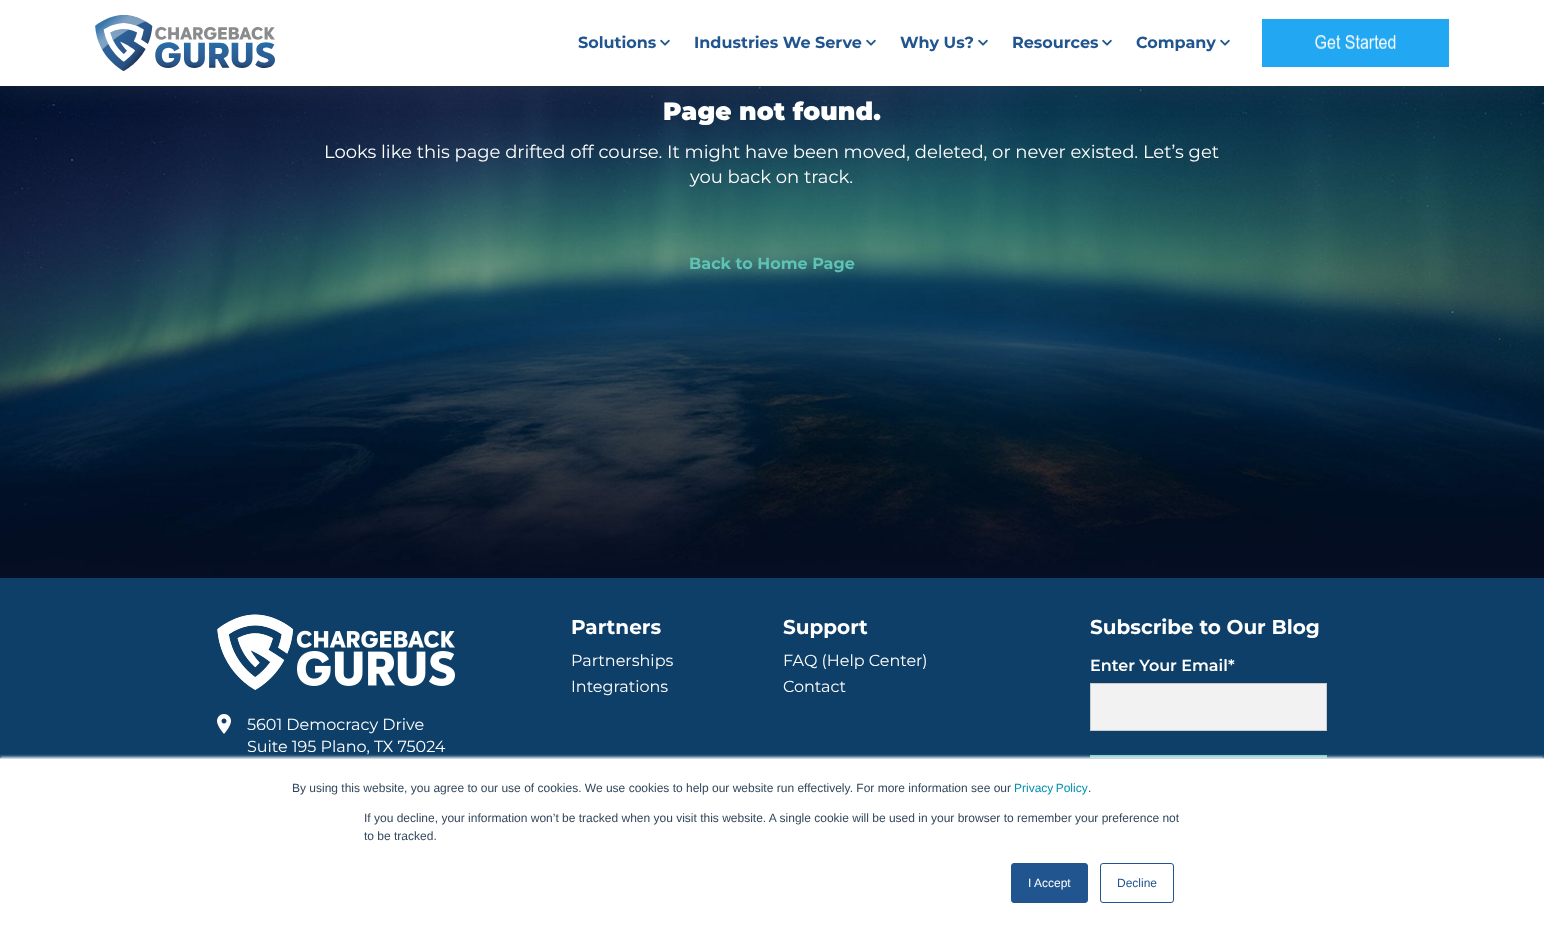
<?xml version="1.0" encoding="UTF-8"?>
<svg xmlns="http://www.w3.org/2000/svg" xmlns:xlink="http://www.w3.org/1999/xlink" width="1544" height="929">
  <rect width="100%" height="100%" fill="#0e3f68" />
  <image x="0" y="86" width="1544" height="492" xlink:href="image4.png" />
  <rect width="1544" height="86" fill="#77838f" fill-opacity="0.2" filter="blur(15px)" />
  <rect width="1544" height="86" fill="#ffffff" />
  <image x="95" y="15" width="180" height="56" xlink:href="image1.png" />
  <image x="660" y="39" width="10" height="7" xlink:href="image2.png" />
  <image x="866" y="39" width="10" height="7" xlink:href="image2.png" />
  <image x="978" y="39" width="10" height="7" xlink:href="image2.png" />
  <image x="1102" y="39" width="10" height="7" xlink:href="image2.png" />
  <image x="1220" y="39" width="10" height="7" xlink:href="image2.png" />
  <image x="1262" y="19" width="187" height="48" xlink:href="image3.png" />
  <image x="217" y="614" width="238" height="76" xlink:href="image5.png" />
  <image x="217" y="714" width="14" height="20" xlink:href="image6.png" />
  <rect x="1090.5" y="683.5" width="236" height="47" fill="#f2f2f2" stroke="#cbcbcb" />
  <rect x="1090" y="755" width="237" height="3" fill="#7ecdc3" />
  <rect y="757" width="1544" height="171" fill="#eaf0f6" filter="blur(1.5px)" />
  <rect y="759" width="1544" height="170" fill="#ffffff" />
  <rect y="758" width="1544" height="1" fill="#cbd6e2" />
  <rect x="1011.5" y="863.5" width="76" height="39" rx="2.5" fill="#21558f" stroke="#21558f" />
  <rect x="1100.5" y="863.5" width="73" height="39" rx="2.5" fill="none" stroke="#21558f" />
  <text x="578" y="48" style="font-family: Montserrat; font-size: 16px; font-weight: bold; fill: #21558f">Solutions</text>
  <text x="694" y="48" style="font-family: Montserrat; font-size: 16px; font-weight: bold; fill: #21558f">Industries We Serve</text>
  <text x="900" y="48" style="font-family: Montserrat; font-size: 16px; font-weight: bold; fill: #21558f">Why Us?</text>
  <text x="1012" y="48" style="font-family: Montserrat; font-size: 16px; font-weight: bold; fill: #21558f">Resources</text>
  <text x="1136" y="48" style="font-family: Montserrat; font-size: 16px; font-weight: bold; fill: #21558f">Company</text>
  <text x="663" y="120" style="font-family: Montserrat; font-size: 25px; font-weight: 900; fill: #ffffff">Page not found.</text>
  <text x="324" y="158" style="font-family: Montserrat; font-size: 18px; fill: #ffffff">Looks like this page drifted off course. It might have been moved, deleted, or never existed. Let’s get</text>
  <text x="690" y="183" style="font-family: Montserrat; font-size: 18px; fill: #ffffff">you back on track.</text>
  <text x="689" y="269" style="font-family: Montserrat; font-size: 16px; font-weight: bold; fill: #5ec2b4">Back to Home Page</text>
  <text x="571" y="634" style="font-family: Montserrat; font-size: 20px; font-weight: bold; fill: #ffffff">Partners</text>
  <text x="571" y="666" style="font-family: Montserrat; font-size: 16px; fill: #ffffff">Partnerships</text>
  <text x="571" y="692" style="font-family: Montserrat; font-size: 16px; fill: #ffffff">Integrations</text>
  <text x="783" y="634" style="font-family: Montserrat; font-size: 20px; font-weight: bold; fill: #ffffff">Support</text>
  <text x="783" y="666" style="font-family: Montserrat; font-size: 16px; fill: #ffffff">FAQ (Help Center)</text>
  <text x="783" y="692" style="font-family: Montserrat; font-size: 16px; fill: #ffffff">Contact</text>
  <text x="247" y="730" style="font-family: Montserrat; font-size: 16px; fill: #ffffff">5601 Democracy Drive</text>
  <text x="247" y="752" style="font-family: Montserrat; font-size: 16px; fill: #ffffff">Suite 195 Plano, TX 75024</text>
  <text x="1090" y="634" style="font-family: Montserrat; font-size: 20px; font-weight: bold; fill: #ffffff">Subscribe to Our Blog</text>
  <text x="1090" y="671" style="font-family: Montserrat; font-size: 16px; font-weight: 600; fill: #ffffff">Enter Your Email</text>
  <text x="1228" y="671" style="font-family: Montserrat; font-size: 16px; font-weight: 600; fill: #ffffff">*</text>
  <text x="292" y="792" style="font-family: Liberation Sans; font-size: 12px; fill: #33475b">By using this website, you agree to our use of cookies. We use cookies to help our website run effectively. For more information see our</text>
  <text x="1014" y="792" word-spacing="-1" style="font-family: Liberation Sans; font-size: 12px; fill: #0091ae">Privacy Policy</text>
  <text x="1088" y="792" style="font-family: Liberation Sans; font-size: 12px; fill: #33475b">.</text>
  <text x="364" y="822" style="font-family: Liberation Sans; font-size: 12px; fill: #33475b">If you decline, your information won’t be tracked when you visit this website. A single cookie will be used in your browser to remember your preference not</text>
  <text x="364" y="840" style="font-family: Liberation Sans; font-size: 12px; fill: #33475b">to be tracked.</text>
  <text x="1028" y="887" style="font-family: Liberation Sans; font-size: 12px; fill: #ffffff">I Accept</text>
  <text x="1117" y="887" style="font-family: Liberation Sans; font-size: 12px; fill: #21558f">Decline</text>
</svg>
